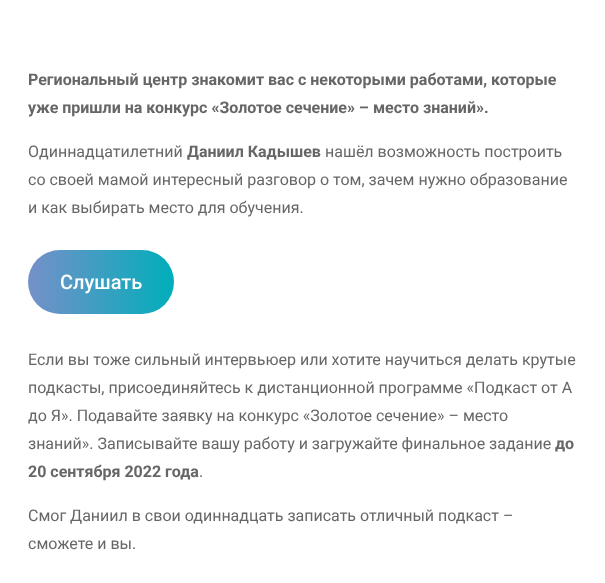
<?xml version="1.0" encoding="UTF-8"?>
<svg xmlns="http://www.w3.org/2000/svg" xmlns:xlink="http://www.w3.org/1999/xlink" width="605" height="583">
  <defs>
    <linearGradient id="g1" gradientUnits="userSpaceOnUse" x1="28" y1="282" x2="174" y2="282"><stop offset="0" stop-color="#7690c9" /><stop offset="1" stop-color="#00aeba" /></linearGradient>
  </defs>
  <rect width="100%" height="100%" fill="#ffffff" />
  <rect x="28" y="250" width="146" height="64" rx="32" fill="url(#g1)" />
  <text x="28" y="85" style="font-family: Roboto; font-size: 16px; font-weight: bold; fill: #666666">Региональный центр знакомит вас с некоторыми работами, которые</text>
  <text x="28" y="113" style="font-family: Roboto; font-size: 16px; font-weight: bold; fill: #666666">уже пришли на конкурс «Золотое сечение» – место знаний».</text>
  <text x="28" y="157" style="font-family: Roboto; font-size: 16px; fill: #666666">Одиннадцатилетний</text>
  <text x="187" y="157" style="font-family: Roboto; font-size: 16px; font-weight: bold; fill: #666666">Даниил Кадышев</text>
  <text x="325" y="157" style="font-family: Roboto; font-size: 16px; fill: #666666">нашёл возможность построить</text>
  <text x="28" y="185" style="font-family: Roboto; font-size: 16px; fill: #666666">со своей мамой интересный разговор о том, зачем нужно образование</text>
  <text x="28" y="213" style="font-family: Roboto; font-size: 16px; fill: #666666">и как выбирать место для обучения.</text>
  <text x="60" y="289" style="font-family: Roboto; font-size: 20px; font-weight: 500; fill: #ffffff">Слушать</text>
  <text x="28" y="365" style="font-family: Roboto; font-size: 16px; fill: #666666">Если вы тоже сильный интервьюер или хотите научиться делать крутые</text>
  <text x="28" y="393" style="font-family: Roboto; font-size: 16px; fill: #666666">подкасты, присоединяйтесь к дистанционной программе «Подкаст от А</text>
  <text x="28" y="421" style="font-family: Roboto; font-size: 16px; fill: #666666">до Я». Подавайте заявку на конкурс «Золотое сечение» – место</text>
  <text x="28" y="449" style="font-family: Roboto; font-size: 16px; fill: #666666">знаний». Записывайте вашу работу и загружайте финальное задание</text>
  <text x="555" y="449" style="font-family: Roboto; font-size: 16px; font-weight: bold; fill: #666666">до</text>
  <text x="28" y="477" style="font-family: Roboto; font-size: 16px; font-weight: bold; fill: #666666">20 сентября 2022 года</text>
  <text x="199" y="477" style="font-family: Roboto; font-size: 16px; fill: #666666">.</text>
  <text x="28" y="521" style="font-family: Roboto; font-size: 16px; fill: #666666">Смог Даниил в свои одиннадцать записать отличный подкаст –</text>
  <text x="28" y="549" style="font-family: Roboto; font-size: 16px; fill: #666666">сможете и вы.</text>
</svg>
